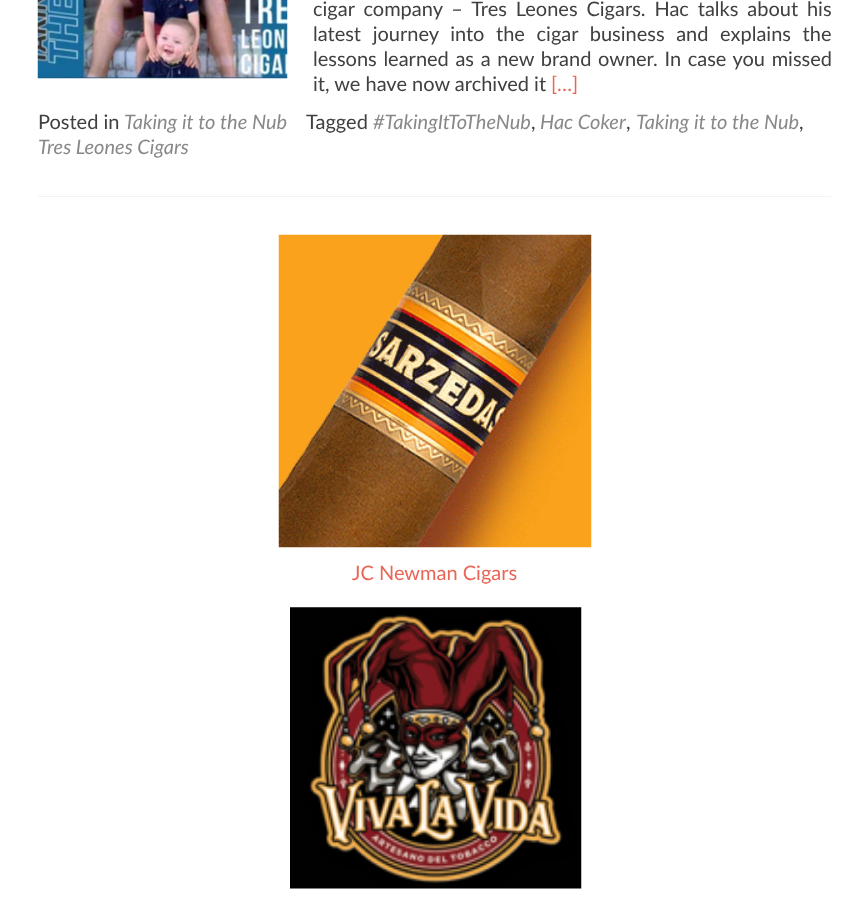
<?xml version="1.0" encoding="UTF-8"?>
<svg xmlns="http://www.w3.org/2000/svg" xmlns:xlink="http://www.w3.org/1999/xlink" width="868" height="916">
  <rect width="100%" height="100%" fill="#ffffff" />
  <rect x="38" y="196" width="793" height="1" fill="#f2f2f2" />
  <image x="37" y="0" width="251" height="79" xlink:href="image1.png" />
  <image x="278" y="234" width="314" height="314" xlink:href="image2.png" />
  <image x="290" y="607" width="292" height="282" xlink:href="image3.png" />
  <text x="313" y="16" word-spacing="3.75" style="font-family: Lato; font-size: 20px; fill: #404040">cigar company – Tres Leones Cigars. Hac talks about his</text>
  <text x="313" y="41" word-spacing="6.5" style="font-family: Lato; font-size: 20px; fill: #404040">latest journey into the cigar business and explains the</text>
  <text x="313" y="66" word-spacing="1.5" style="font-family: Lato; font-size: 20px; fill: #404040">lessons learned as a new brand owner. In case you missed</text>
  <text x="313" y="91" style="font-family: Lato; font-size: 20px; fill: #404040">it, we have now archived it</text>
  <text x="551" y="91" style="font-family: Lato; font-size: 20px; fill: #e96656">[…]</text>
  <text x="38" y="129" style="font-family: Lato; font-size: 20px; fill: #404040">Posted in</text>
  <text x="124" y="129" style="font-family: Lato; font-size: 20px; font-style: italic; fill: #888888">Taking it to the Nub</text>
  <text x="306" y="129" style="font-family: Lato; font-size: 20px; fill: #404040">Tagged</text>
  <text x="373" y="129" style="font-family: Lato; font-size: 20px; font-style: italic; fill: #888888">#TakingItToTheNub</text>
  <text x="531" y="129" style="font-family: Lato; font-size: 20px; fill: #404040">,</text>
  <text x="540" y="129" style="font-family: Lato; font-size: 20px; font-style: italic; fill: #888888">Hac Coker</text>
  <text x="626" y="129" style="font-family: Lato; font-size: 20px; fill: #404040">,</text>
  <text x="636" y="129" style="font-family: Lato; font-size: 20px; font-style: italic; fill: #888888">Taking it to the Nub</text>
  <text x="799" y="129" style="font-family: Lato; font-size: 20px; fill: #404040">,</text>
  <text x="38" y="154" style="font-family: Lato; font-size: 20px; font-style: italic; fill: #888888">Tres Leones Cigars</text>
  <text x="352" y="580" style="font-family: Lato; font-size: 20px; fill: #e96656">JC Newman Cigars</text>
</svg>
